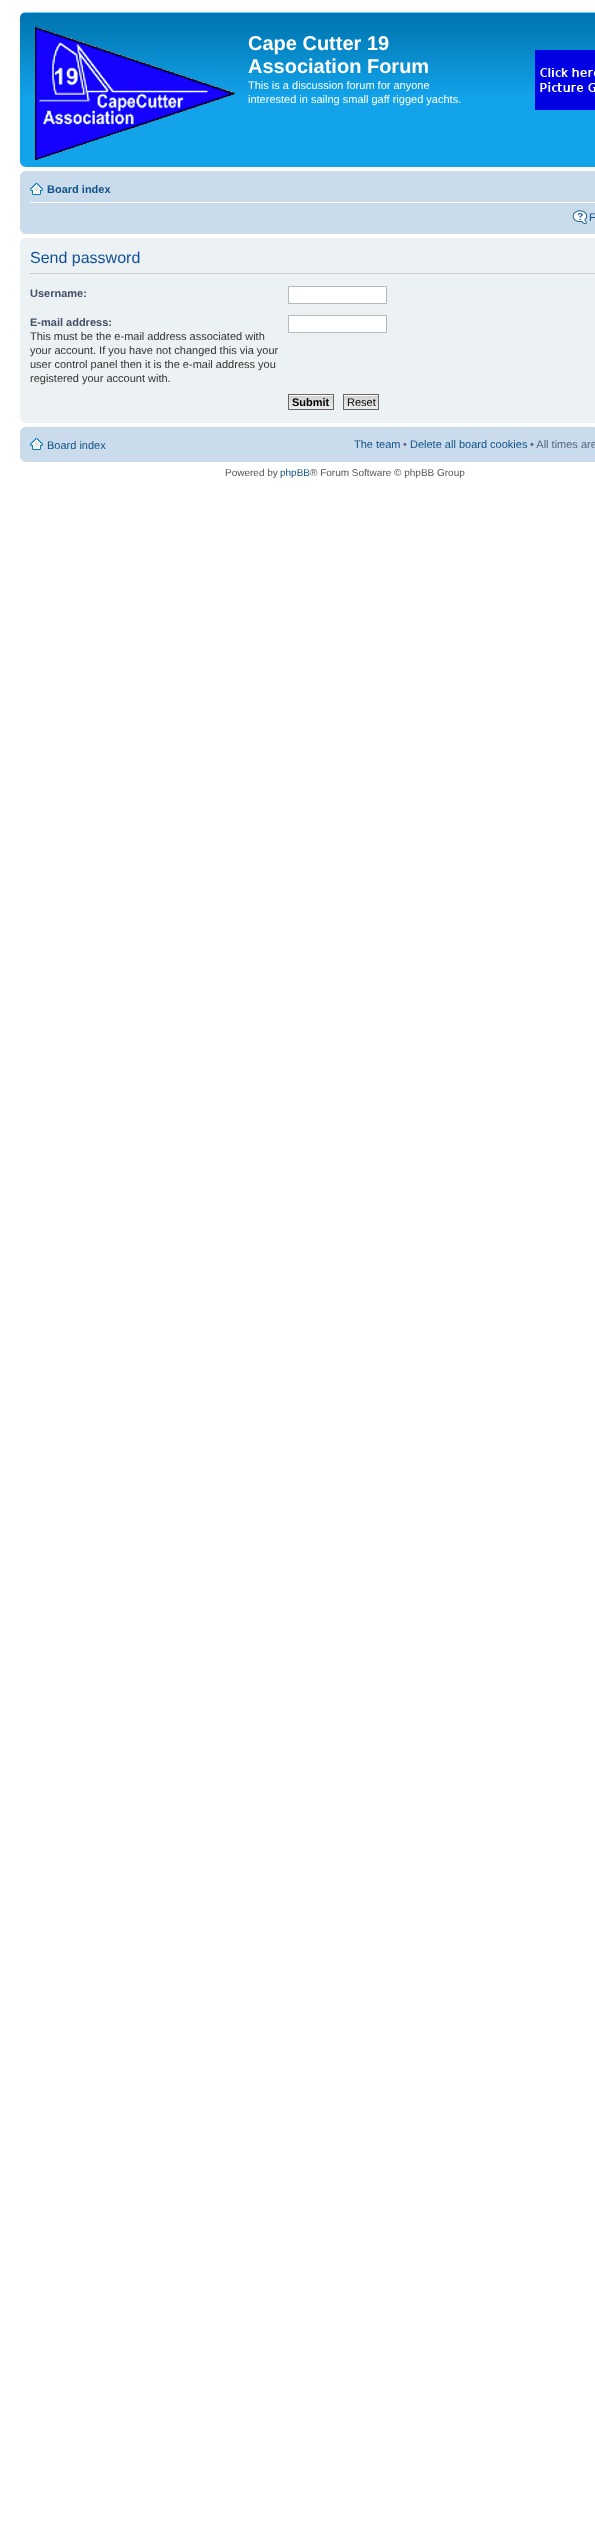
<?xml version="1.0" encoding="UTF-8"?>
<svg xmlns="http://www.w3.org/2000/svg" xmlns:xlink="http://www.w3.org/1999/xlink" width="595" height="2536">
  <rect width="100%" height="100%" fill="#ffffff" />
  <rect x="20" y="94" width="575" height="73" fill="#12a3eb" />
  <image x="20" y="12" width="575" height="82" xlink:href="image1.png" />
  <image x="20" y="12" width="5" height="5" xlink:href="image2.png" />
  <image x="35" y="27" width="200" height="133" xlink:href="image3.png" />
  <image x="535" y="50" width="60" height="60" xlink:href="image4.png" />
  <image x="20" y="162" width="5" height="5" xlink:href="image5.png" />
  <rect x="20" y="171" width="575" height="63" fill="#cadceb" />
  <image x="20" y="171" width="5" height="5" xlink:href="image6.png" />
  <rect x="30" y="202" width="565" height="1" fill="#ffffff" />
  <image x="30" y="183" width="13" height="12" xlink:href="image7.png" />
  <image x="572" y="210" width="16" height="14" xlink:href="image8.png" />
  <image x="20" y="229" width="5" height="5" xlink:href="image9.png" />
  <rect x="20" y="238" width="575" height="185" fill="#ecf1f3" />
  <image x="20" y="238" width="5" height="5" xlink:href="image10.png" />
  <rect x="30" y="273" width="565" height="1" fill="#cccccc" />
  <rect x="288.5" y="286.5" width="98" height="17" fill="#ffffff" stroke="#b4bac0" />
  <rect x="288.5" y="315.5" width="98" height="17" fill="#ffffff" stroke="#b4bac0" />
  <image x="289" y="395" width="44" height="14" xlink:href="image11.png" />
  <rect x="288.5" y="394.5" width="45" height="15" fill="none" stroke="#666666" />
  <image x="344" y="395" width="34" height="14" xlink:href="image12.png" />
  <rect x="343.5" y="394.5" width="35" height="15" fill="none" stroke="#666666" />
  <image x="20" y="418" width="5" height="5" xlink:href="image13.png" />
  <rect x="20" y="427" width="575" height="35" fill="#cadceb" />
  <image x="20" y="427" width="5" height="5" xlink:href="image6.png" />
  <image x="30" y="438" width="13" height="12" xlink:href="image7.png" />
  <image x="20" y="457" width="5" height="5" xlink:href="image9.png" />
  <text x="248" y="50" style="font-family: Liberation Sans; font-size: 20px; font-weight: bold; fill: #ffffff">Cape Cutter 19</text>
  <text x="248" y="73" style="font-family: Liberation Sans; font-size: 20px; font-weight: bold; fill: #ffffff">Association Forum</text>
  <text x="248" y="89" style="font-family: Liberation Sans; font-size: 11px; fill: #ffffff">This is a discussion forum for anyone</text>
  <text x="248" y="103" style="font-family: Liberation Sans; font-size: 11px; fill: #ffffff">interested in sailng small gaff rigged yachts.</text>
  <text x="47" y="193" style="font-family: Liberation Sans; font-size: 11px; font-weight: bold; fill: #105289">Board index</text>
  <text x="589" y="221" style="font-family: Liberation Sans; font-size: 11px; fill: #105289">F</text>
  <text x="30" y="263" style="font-family: Liberation Sans; font-size: 16px; fill: #115098">Send password</text>
  <text x="30" y="297" style="font-family: Liberation Sans; font-size: 11px; font-weight: bold; fill: #425067">Username:</text>
  <text x="30" y="326" style="font-family: Liberation Sans; font-size: 11px; font-weight: bold; fill: #425067">E-mail address:</text>
  <text x="30" y="340" style="font-family: Liberation Sans; font-size: 11px; fill: #333333">This must be the e-mail address associated with</text>
  <text x="30" y="354" style="font-family: Liberation Sans; font-size: 11px; fill: #333333">your account. If you have not changed this via your</text>
  <text x="30" y="368" style="font-family: Liberation Sans; font-size: 11px; fill: #333333">user control panel then it is the e-mail address you</text>
  <text x="30" y="382" style="font-family: Liberation Sans; font-size: 11px; fill: #333333">registered your account with.</text>
  <text x="292" y="406" style="font-family: Liberation Sans; font-size: 11px; font-weight: bold; fill: #000000">Submit</text>
  <text x="347" y="406" style="font-family: Liberation Sans; font-size: 11px; fill: #000000">Reset</text>
  <text x="47" y="449" style="font-family: Liberation Sans; font-size: 11px; fill: #105289">Board index</text>
  <text x="354" y="448" style="font-family: Liberation Sans; font-size: 11px; fill: #105289">The team</text>
  <text x="403" y="448" style="font-family: Liberation Sans; font-size: 11px; fill: #536482">•</text>
  <text x="410" y="448" style="font-family: Liberation Sans; font-size: 11px; fill: #105289">Delete all board cookies</text>
  <text x="530" y="448" style="font-family: Liberation Sans; font-size: 11px; fill: #536482">• All times are</text>
  <text x="225" y="476" style="font-family: Liberation Sans; font-size: 10px; fill: #555555">Powered by</text>
  <text x="280" y="476" style="font-family: Liberation Sans; font-size: 10px; fill: #105289">phpBB</text>
  <text x="310" y="476" style="font-family: Liberation Sans; font-size: 10px; fill: #555555">® Forum Software © phpBB Group</text>
</svg>
